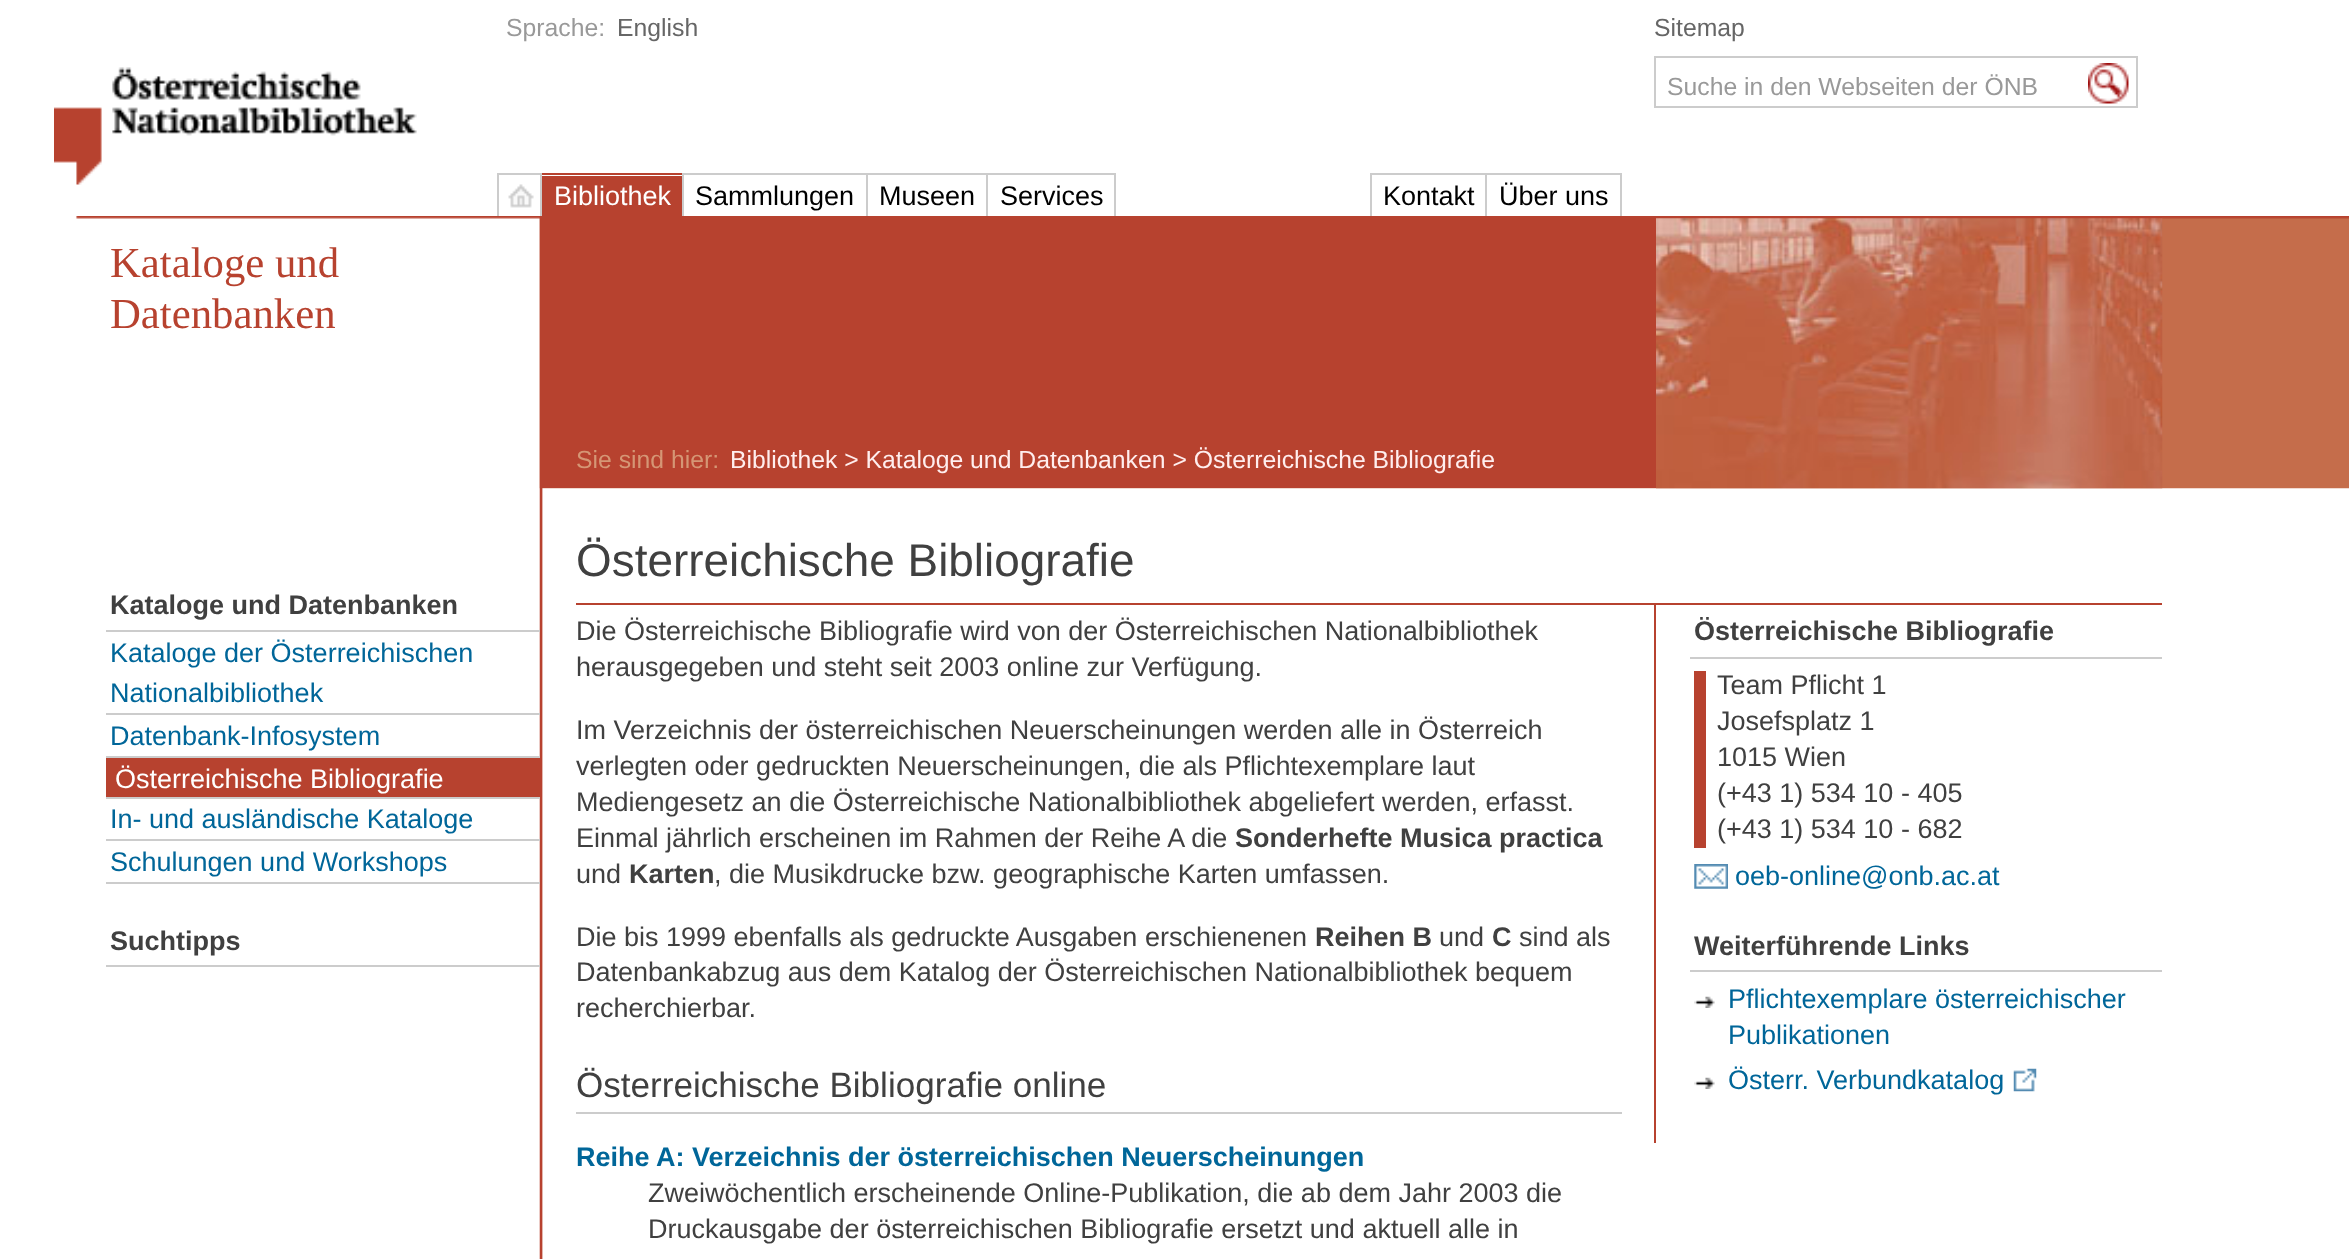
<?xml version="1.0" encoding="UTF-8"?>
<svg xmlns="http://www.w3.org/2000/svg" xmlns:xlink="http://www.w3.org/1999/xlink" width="2349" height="1259">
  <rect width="100%" height="100%" fill="#ffffff" />
  <rect x="1655" y="57" width="482" height="50" fill="none" stroke="#cccccc" stroke-width="2" />
  <image x="2088" y="63" width="41" height="41" xlink:href="image1.png" />
  <image x="54" y="67" width="363" height="118" xlink:href="image2.png" />
  <rect x="497" y="173" width="45" height="2" fill="#cccccc" />
  <rect x="540" y="173" width="2" height="43" fill="#cccccc" />
  <rect x="497" y="173" width="2" height="43" fill="#cccccc" />
  <image x="508" y="184" width="26" height="24" xlink:href="image3.png" />
  <rect x="542" y="173" width="142" height="2" fill="#b7422f" />
  <rect x="682" y="173" width="2" height="43" fill="#cccccc" />
  <rect x="542" y="176" width="140" height="40" fill="#b7422f" />
  <rect x="684" y="173" width="432" height="2" fill="#cccccc" />
  <rect x="866" y="173" width="2" height="43" fill="#cccccc" />
  <rect x="986" y="173" width="2" height="43" fill="#cccccc" />
  <rect x="1114" y="173" width="2" height="43" fill="#cccccc" />
  <rect x="1370" y="173" width="252" height="2" fill="#cccccc" />
  <rect x="1485" y="173" width="2" height="43" fill="#cccccc" />
  <rect x="1370" y="173" width="2" height="43" fill="#cccccc" />
  <rect x="1620" y="173" width="2" height="43" fill="#cccccc" />
  <image x="76" y="216" width="2273" height="273" xlink:href="image4.png" />
  <image x="539" y="217" width="4" height="1042" xlink:href="image5.png" />
  <rect x="106" y="630" width="434" height="2" fill="#cccccc" />
  <rect x="106" y="713" width="434" height="2" fill="#cccccc" />
  <rect x="106" y="756" width="434" height="2" fill="#cccccc" />
  <rect x="106" y="758" width="434" height="39" fill="#b7422f" />
  <rect x="106" y="797" width="434" height="2" fill="#cccccc" />
  <rect x="106" y="839" width="434" height="2" fill="#cccccc" />
  <rect x="106" y="882" width="434" height="2" fill="#cccccc" />
  <rect x="106" y="965" width="434" height="2" fill="#cccccc" />
  <rect x="540" y="216" width="2" height="1043" fill="#b7422f" />
  <rect x="542" y="217" width="1620" height="271" fill="#b7422f" />
  <image x="1656" y="218" width="507" height="271" xlink:href="image6.png" />
  <rect x="576" y="603" width="1586" height="2" fill="#b7422f" />
  <rect x="576" y="1112" width="1046" height="2" fill="#cccccc" />
  <rect x="1654" y="605" width="2" height="538" fill="#b7422f" />
  <rect x="1690" y="657" width="472" height="2" fill="#cccccc" />
  <rect x="1694" y="671" width="12" height="177" fill="#b7422f" />
  <image x="1694" y="864" width="34" height="25" xlink:href="image7.png" />
  <rect x="1690" y="970" width="472" height="2" fill="#cccccc" />
  <image x="1694" y="996" width="21" height="12" xlink:href="image8.png" />
  <image x="1694" y="1077" width="21" height="12" xlink:href="image8.png" />
  <image x="2013" y="1068" width="24" height="24" xlink:href="image9.png" />
  <text x="506" y="36" style="font-family: Liberation Sans; font-size: 24.75px; fill: #999999">Sprache:</text>
  <text x="617" y="36" style="font-family: Liberation Sans; font-size: 24.75px; fill: #666666">English</text>
  <text x="1654" y="36" style="font-family: Liberation Sans; font-size: 24.75px; fill: #666666">Sitemap</text>
  <text x="1667" y="95" style="font-family: Liberation Sans; font-size: 24.75px; fill: #999999">Suche in den Webseiten der ÖNB</text>
  <text x="554" y="205" style="font-family: Liberation Sans; font-size: 27px; fill: #ffffff">Bibliothek</text>
  <text x="695" y="205" style="font-family: Liberation Sans; font-size: 27px; fill: #000000">Sammlungen</text>
  <text x="879" y="205" style="font-family: Liberation Sans; font-size: 27px; fill: #000000">Museen</text>
  <text x="1000" y="205" style="font-family: Liberation Sans; font-size: 27px; fill: #000000">Services</text>
  <text x="1383" y="205" style="font-family: Liberation Sans; font-size: 27px; fill: #000000">Kontakt</text>
  <text x="1499" y="205" style="font-family: Liberation Sans; font-size: 27px; fill: #000000">Über uns</text>
  <text x="110" y="277" style="font-family: Liberation Serif; font-size: 42.75px; fill: #b7422f">Kataloge und</text>
  <text x="110" y="328" style="font-family: Liberation Serif; font-size: 42.75px; fill: #b7422f">Datenbanken</text>
  <text x="110" y="614" style="font-family: Liberation Sans; font-size: 27px; font-weight: bold; fill: #404040">Kataloge und Datenbanken</text>
  <text x="110" y="662" style="font-family: Liberation Sans; font-size: 27px; fill: #006699">Kataloge der Österreichischen</text>
  <text x="110" y="702" style="font-family: Liberation Sans; font-size: 27px; fill: #006699">Nationalbibliothek</text>
  <text x="110" y="745" style="font-family: Liberation Sans; font-size: 27px; fill: #006699">Datenbank-Infosystem</text>
  <text x="115" y="788" style="font-family: Liberation Sans; font-size: 27px; fill: #ffffff">Österreichische Bibliografie</text>
  <text x="110" y="828" style="font-family: Liberation Sans; font-size: 27px; fill: #006699">In- und ausländische Kataloge</text>
  <text x="110" y="871" style="font-family: Liberation Sans; font-size: 27px; fill: #006699">Schulungen und Workshops</text>
  <text x="110" y="950" style="font-family: Liberation Sans; font-size: 27px; font-weight: bold; fill: #404040">Suchtipps</text>
  <text x="576" y="468" style="font-family: Liberation Sans; font-size: 24.75px; fill: #d59675">Sie sind hier:</text>
  <text x="730" y="468" style="font-family: Liberation Sans; font-size: 24.75px; fill: #ffeeee">Bibliothek &gt; Kataloge und Datenbanken &gt; Österreichische Bibliografie</text>
  <text x="576" y="576" style="font-family: Liberation Sans; font-size: 45.9px; fill: #404040">Österreichische Bibliografie</text>
  <text x="576" y="640" style="font-family: Liberation Sans; font-size: 27px; fill: #404040">Die Österreichische Bibliografie wird von der Österreichischen Nationalbibliothek</text>
  <text x="576" y="676" style="font-family: Liberation Sans; font-size: 27px; fill: #404040">herausgegeben und steht seit 2003 online zur Verfügung.</text>
  <text x="576" y="739" style="font-family: Liberation Sans; font-size: 27px; fill: #404040">Im Verzeichnis der österreichischen Neuerscheinungen werden alle in Österreich</text>
  <text x="576" y="775" style="font-family: Liberation Sans; font-size: 27px; fill: #404040">verlegten oder gedruckten Neuerscheinungen, die als Pflichtexemplare laut</text>
  <text x="576" y="811" style="font-family: Liberation Sans; font-size: 27px; fill: #404040">Mediengesetz an die Österreichische Nationalbibliothek abgeliefert werden, erfasst.</text>
  <text x="576" y="847" style="font-family: Liberation Sans; font-size: 27px; fill: #404040">Einmal jährlich erscheinen im Rahmen der Reihe A die</text>
  <text x="1235" y="847" style="font-family: Liberation Sans; font-size: 27px; font-weight: bold; fill: #404040">Sonderhefte Musica practica</text>
  <text x="576" y="883" style="font-family: Liberation Sans; font-size: 27px; fill: #404040">und</text>
  <text x="629" y="883" style="font-family: Liberation Sans; font-size: 27px; font-weight: bold; fill: #404040">Karten</text>
  <text x="714" y="883" style="font-family: Liberation Sans; font-size: 27px; fill: #404040">, die Musikdrucke bzw. geographische Karten umfassen.</text>
  <text x="576" y="946" style="font-family: Liberation Sans; font-size: 27px; fill: #404040">Die bis 1999 ebenfalls als gedruckte Ausgaben erschienenen</text>
  <text x="1315" y="946" style="font-family: Liberation Sans; font-size: 27px; font-weight: bold; fill: #404040">Reihen B</text>
  <text x="1439" y="946" style="font-family: Liberation Sans; font-size: 27px; fill: #404040">und</text>
  <text x="1492" y="946" style="font-family: Liberation Sans; font-size: 27px; font-weight: bold; fill: #404040">C</text>
  <text x="1519" y="946" style="font-family: Liberation Sans; font-size: 27px; fill: #404040">sind als</text>
  <text x="576" y="981" style="font-family: Liberation Sans; font-size: 27px; fill: #404040">Datenbankabzug aus dem Katalog der Österreichischen Nationalbibliothek bequem</text>
  <text x="576" y="1017" style="font-family: Liberation Sans; font-size: 27px; fill: #404040">recherchierbar.</text>
  <text x="576" y="1097" style="font-family: Liberation Sans; font-size: 35.1px; fill: #404040">Österreichische Bibliografie online</text>
  <text x="576" y="1166" style="font-family: Liberation Sans; font-size: 27px; font-weight: bold; fill: #006699">Reihe A: Verzeichnis der österreichischen Neuerscheinungen</text>
  <text x="648" y="1202" style="font-family: Liberation Sans; font-size: 27px; fill: #404040">Zweiwöchentlich erscheinende Online-Publikation, die ab dem Jahr 2003 die</text>
  <text x="648" y="1238" style="font-family: Liberation Sans; font-size: 27px; fill: #404040">Druckausgabe der österreichischen Bibliografie ersetzt und aktuell alle in</text>
  <text x="1694" y="640" style="font-family: Liberation Sans; font-size: 27px; font-weight: bold; fill: #404040">Österreichische Bibliografie</text>
  <text x="1717" y="694" style="font-family: Liberation Sans; font-size: 27px; fill: #404040">Team Pflicht 1</text>
  <text x="1717" y="730" style="font-family: Liberation Sans; font-size: 27px; fill: #404040">Josefsplatz 1</text>
  <text x="1717" y="766" style="font-family: Liberation Sans; font-size: 27px; fill: #404040">1015 Wien</text>
  <text x="1717" y="802" style="font-family: Liberation Sans; font-size: 27px; fill: #404040">(+43 1) 534 10 - 405</text>
  <text x="1717" y="838" style="font-family: Liberation Sans; font-size: 27px; fill: #404040">(+43 1) 534 10 - 682</text>
  <text x="1735" y="885" style="font-family: Liberation Sans; font-size: 27px; fill: #006699">oeb-online@onb.ac.at</text>
  <text x="1694" y="955" style="font-family: Liberation Sans; font-size: 27px; font-weight: bold; fill: #404040">Weiterführende Links</text>
  <text x="1728" y="1008" style="font-family: Liberation Sans; font-size: 27px; fill: #006699">Pflichtexemplare österreichischer</text>
  <text x="1728" y="1044" style="font-family: Liberation Sans; font-size: 27px; fill: #006699">Publikationen</text>
  <text x="1728" y="1089" style="font-family: Liberation Sans; font-size: 27px; fill: #006699">Österr. Verbundkatalog</text>
</svg>
